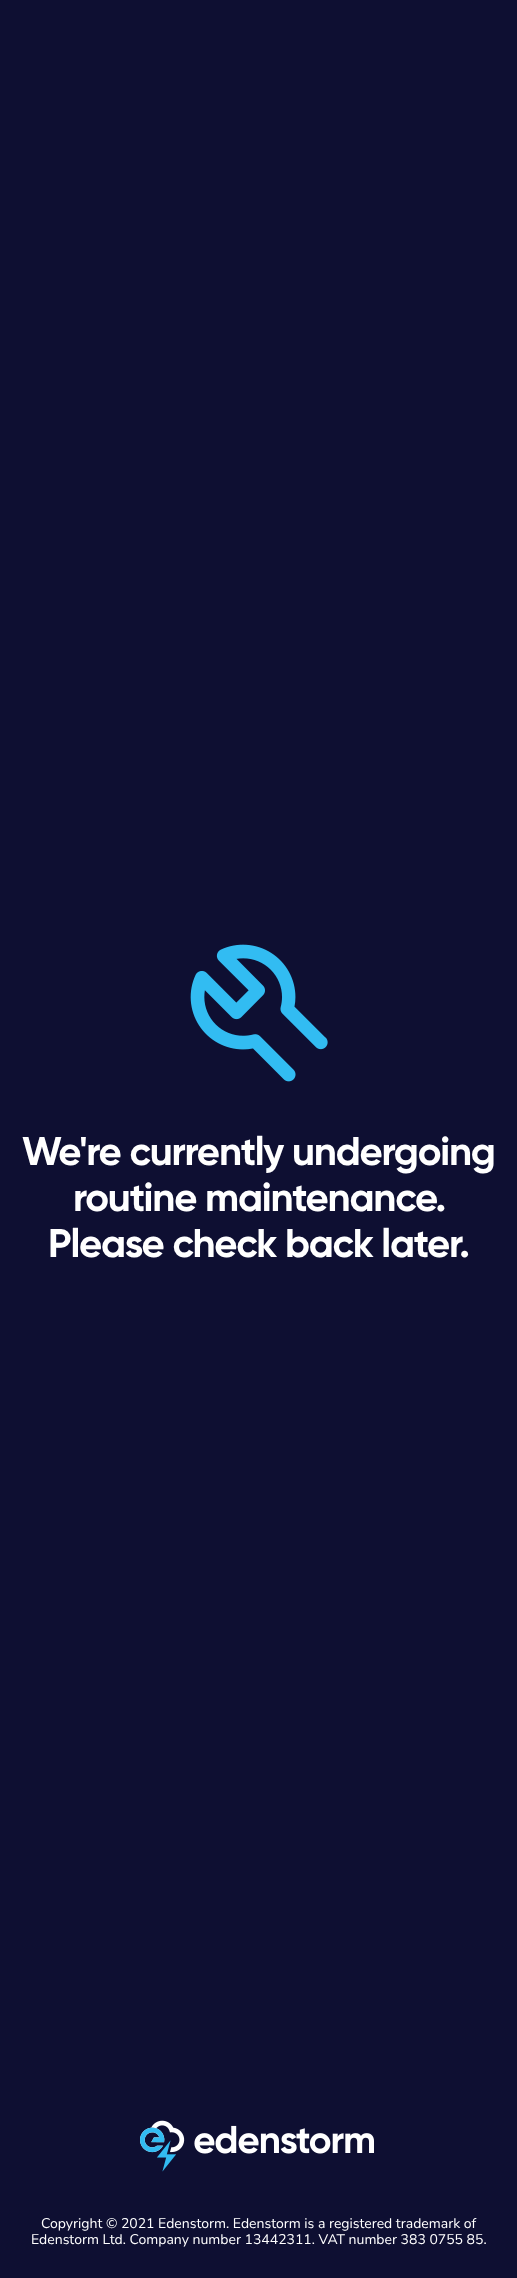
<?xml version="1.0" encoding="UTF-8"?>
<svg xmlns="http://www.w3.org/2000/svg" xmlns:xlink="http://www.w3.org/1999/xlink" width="517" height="2278">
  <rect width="100%" height="100%" fill="#0e0f32" />
  <image x="190" y="944" width="138" height="138" xlink:href="image1.png" />
  <image x="140" y="2120" width="234" height="52" xlink:href="image2.png" />
  <text x="22" y="1165" style="font-family: Gilroy; font-size: 40px; font-weight: bold; letter-spacing: -1.2px; fill: #ffffff">We're currently undergoing</text>
  <text x="73" y="1211" style="font-family: Gilroy; font-size: 40px; font-weight: bold; letter-spacing: -1.2px; fill: #ffffff">routine maintenance.</text>
  <text x="48" y="1257" style="font-family: Gilroy; font-size: 40px; font-weight: bold; letter-spacing: -1.2px; fill: #ffffff">Please check back later.</text>
  <text x="41" y="2228" style="font-family: Nunito Sans; font-size: 14px; fill: #ffffff">Copyright © 2021 Edenstorm. Edenstorm is a registered trademark of</text>
  <text x="31" y="2244" style="font-family: Nunito Sans; font-size: 14px; fill: #ffffff">Edenstorm Ltd. Company number 13442311. VAT number 383 0755 85.</text>
</svg>
